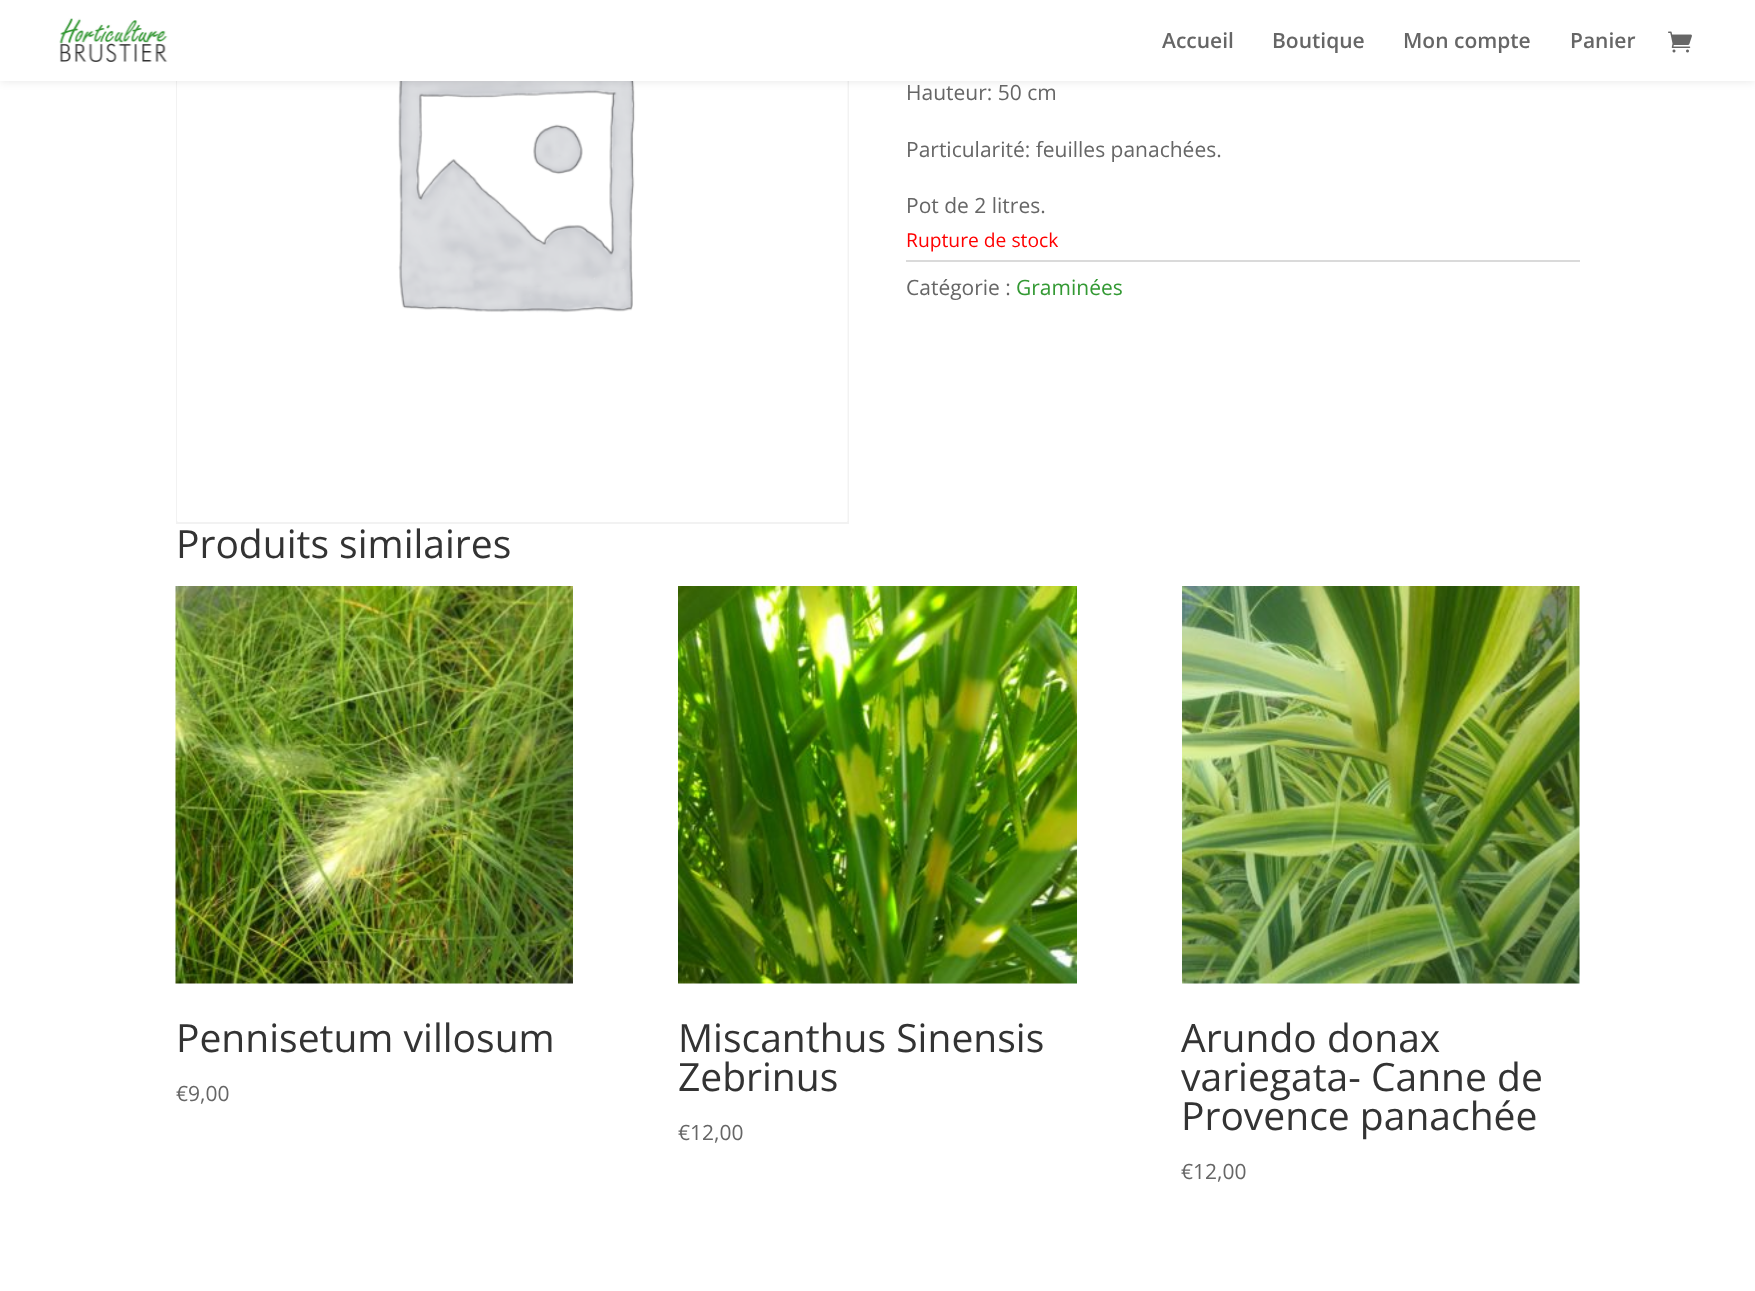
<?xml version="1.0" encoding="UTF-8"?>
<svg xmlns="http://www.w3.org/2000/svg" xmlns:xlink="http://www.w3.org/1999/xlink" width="1755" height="1291">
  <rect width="100%" height="100%" fill="#ffffff" />
  <rect x="177" y="-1" width="671" height="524" fill="none" stroke="#f2f2f2" stroke-width="2" />
  <image x="177" y="81" width="671" height="441" xlink:href="image3.png" />
  <rect width="1755" height="81" fill="#000000" fill-opacity="0.1" filter="blur(5px)" />
  <rect width="1755" height="81" fill="#ffffff" />
  <image x="59" y="18" width="109" height="44" xlink:href="image1.png" />
  <image x="1668" y="31" width="24" height="22" xlink:href="image2.png" />
  <rect x="906" y="260" width="674" height="2" fill="#dadada" />
  <image x="175" y="586" width="398" height="398" xlink:href="image4.png" />
  <image x="678" y="586" width="399" height="398" xlink:href="image5.png" />
  <image x="1182" y="586" width="398" height="398" xlink:href="image6.png" />
  <text x="1162" y="48" style="font-family: Open Sans; font-size: 21px; font-weight: 600; fill: #666666">Accueil</text>
  <text x="1272" y="48" style="font-family: Open Sans; font-size: 21px; font-weight: 600; fill: #666666">Boutique</text>
  <text x="1403" y="48" style="font-family: Open Sans; font-size: 21px; font-weight: 600; fill: #666666">Mon compte</text>
  <text x="1570" y="48" style="font-family: Open Sans; font-size: 21px; font-weight: 600; fill: #666666">Panier</text>
  <text x="906" y="100" style="font-family: Open Sans; font-size: 21px; fill: #666666">Hauteur: 50 cm</text>
  <text x="906" y="157" style="font-family: Open Sans; font-size: 21px; fill: #666666">Particularité: feuilles panachées.</text>
  <text x="906" y="213" style="font-family: Open Sans; font-size: 21px; fill: #666666">Pot de 2 litres.</text>
  <text x="906" y="247" style="font-family: Open Sans; font-size: 19.25px; fill: #ff0000">Rupture de stock</text>
  <text x="906" y="295" style="font-family: Open Sans; font-size: 21px; fill: #666666">Catégorie :</text>
  <text x="1016" y="295" style="font-family: Open Sans; font-size: 21px; fill: #339933">Graminées</text>
  <text x="176" y="558" style="font-family: Open Sans; font-size: 39px; fill: #333333">Produits similaires</text>
  <text x="176" y="1052" style="font-family: Open Sans; font-size: 39px; fill: #333333">Pennisetum villosum</text>
  <text x="176" y="1101" style="font-family: Open Sans; font-size: 21px; fill: #666666">€9,00</text>
  <text x="678" y="1052" style="font-family: Open Sans; font-size: 39px; fill: #333333">Miscanthus Sinensis</text>
  <text x="678" y="1091" style="font-family: Open Sans; font-size: 39px; fill: #333333">Zebrinus</text>
  <text x="678" y="1140" style="font-family: Open Sans; font-size: 21px; fill: #666666">€12,00</text>
  <text x="1181" y="1052" style="font-family: Open Sans; font-size: 39px; fill: #333333">Arundo donax</text>
  <text x="1181" y="1091" style="font-family: Open Sans; font-size: 39px; fill: #333333">variegata- Canne de</text>
  <text x="1181" y="1130" style="font-family: Open Sans; font-size: 39px; fill: #333333">Provence panachée</text>
  <text x="1181" y="1179" style="font-family: Open Sans; font-size: 21px; fill: #666666">€12,00</text>
</svg>
